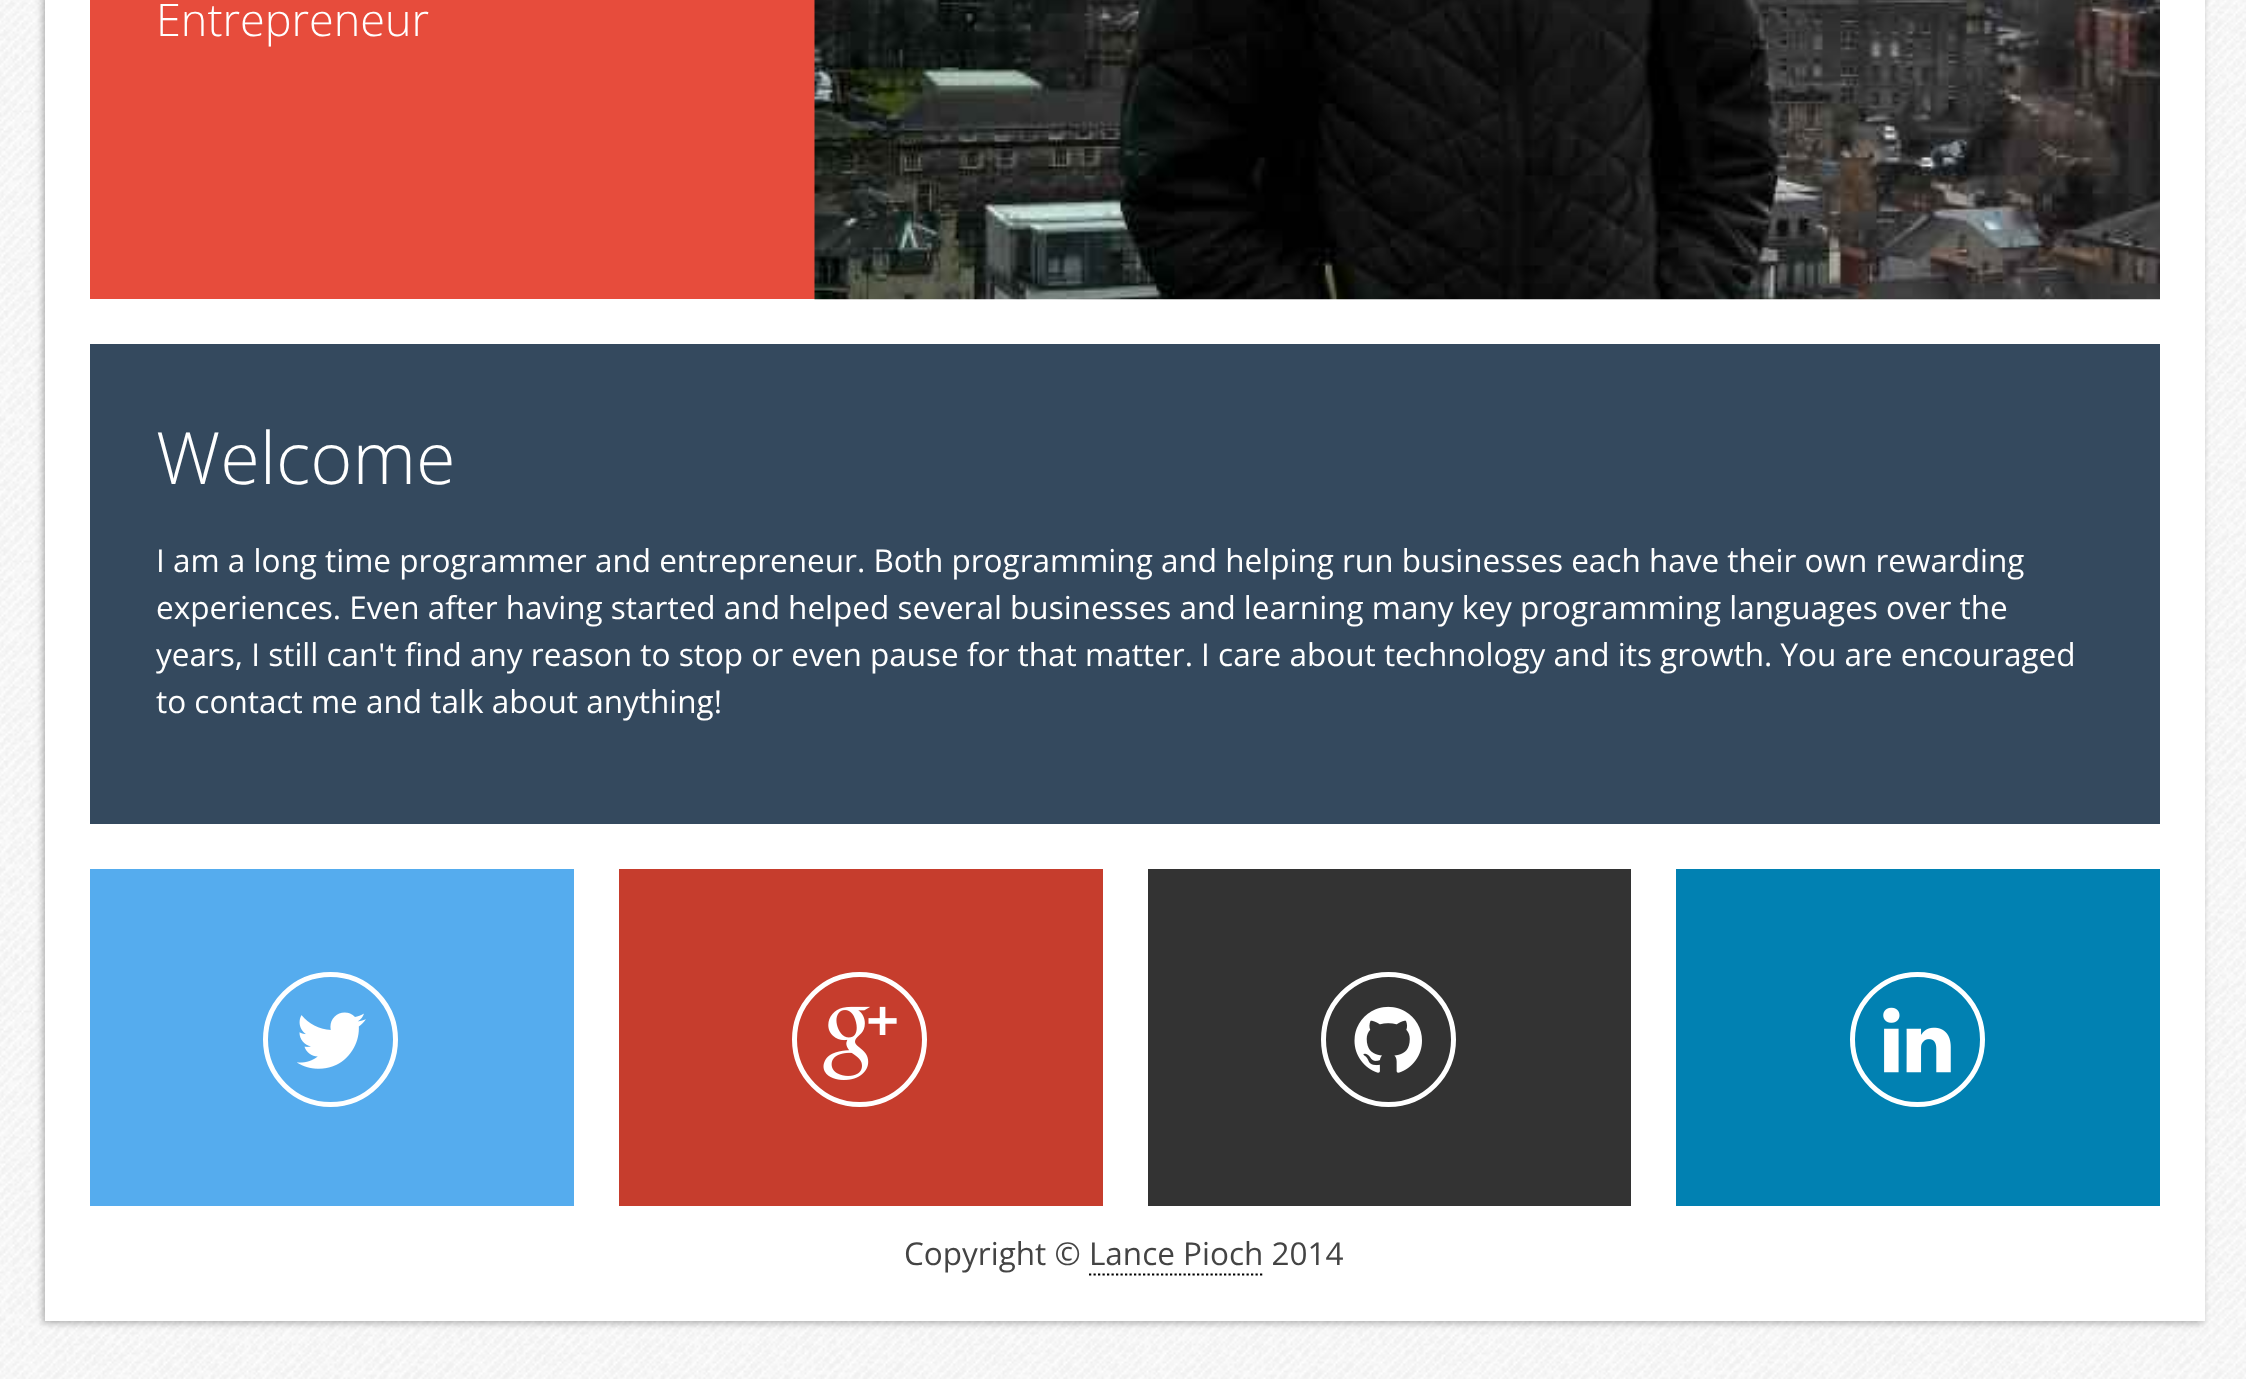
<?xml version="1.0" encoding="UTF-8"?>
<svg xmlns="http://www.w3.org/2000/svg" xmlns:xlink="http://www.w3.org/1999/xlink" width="2246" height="1379">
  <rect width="100%" height="100%" fill="#ffffff" />
  <image x="0" y="0" width="2246" height="1379" xlink:href="image1.png" />
  <rect x="43" y="-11" width="2160" height="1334" fill="#000000" fill-opacity="0.3" filter="blur(3.5px)" />
  <rect x="45" width="2160" height="1321" fill="#ffffff" />
  <rect x="90" width="725" height="299" fill="#e74c3c" />
  <image x="814" y="0" width="1346" height="300" xlink:href="image2.png" />
  <rect x="90" y="344" width="2070" height="480" fill="#34495e" />
  <rect x="90" y="869" width="484" height="337" fill="#55acee" />
  <circle cx="330.5" cy="1039.5" r="65" fill="none" stroke="#ffffff" stroke-width="5" />
  <image x="297" y="1012" width="69" height="57" xlink:href="image3.png" />
  <rect x="619" y="869" width="484" height="337" fill="#c63d2d" />
  <circle cx="859.5" cy="1039.5" r="65" fill="none" stroke="#ffffff" stroke-width="5" />
  <image x="823" y="1006" width="74" height="74" xlink:href="image4.png" />
  <rect x="1148" y="869" width="483" height="337" fill="#333333" />
  <circle cx="1388.5" cy="1039.5" r="65" fill="none" stroke="#ffffff" stroke-width="5" />
  <image x="1354" y="1006" width="68" height="67" xlink:href="image5.png" />
  <rect x="1676" y="869" width="484" height="337" fill="#0181b2" />
  <circle cx="1917.5" cy="1039.5" r="65" fill="none" stroke="#ffffff" stroke-width="5" />
  <image x="1883" y="1007" width="68" height="66" xlink:href="image6.png" />
  <path d="M 1089 1274.5 h 175.5" fill="none" stroke="#000000" stroke-width="2.2" stroke-dasharray="2.25 2.25" />
  <text x="156" y="36" style="font-family: Open Sans; font-size: 45px; font-weight: 300; fill: #ffffff">Entrepreneur</text>
  <text x="156" y="484" style="font-family: Open Sans; font-size: 72px; font-weight: 300; fill: #ffffff">Welcome</text>
  <text x="156" y="572" style="font-family: Open Sans; font-size: 31.5px; fill: #ffffff">I am a long time programmer and entrepreneur. Both programming and helping run businesses each have their own rewarding</text>
  <text x="156" y="619" style="font-family: Open Sans; font-size: 31.5px; fill: #ffffff">experiences. Even after having started and helped several businesses and learning many key programming languages over the</text>
  <text x="156" y="666" style="font-family: Open Sans; font-size: 31.5px; fill: #ffffff">years, I still can't find any reason to stop or even pause for that matter. I care about technology and its growth. You are encouraged</text>
  <text x="156" y="713" style="font-family: Open Sans; font-size: 31.5px; fill: #ffffff">to contact me and talk about anything!</text>
  <text x="904" y="1265" style="font-family: Open Sans; font-size: 31.5px; fill: #444444">Copyright © Lance Pioch 2014</text>
</svg>
